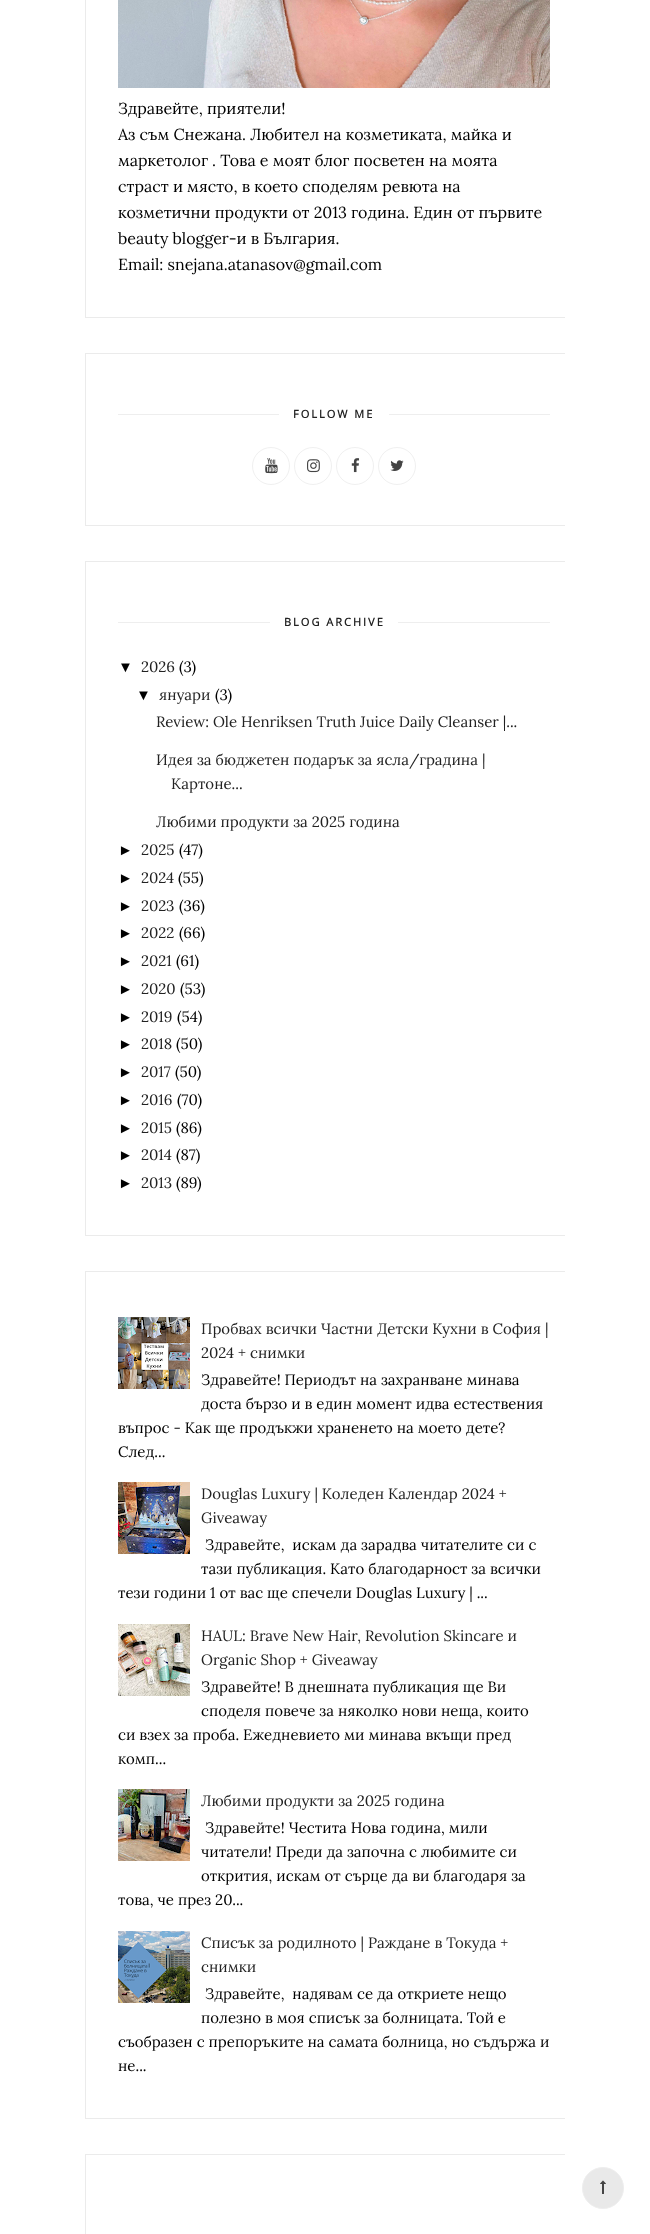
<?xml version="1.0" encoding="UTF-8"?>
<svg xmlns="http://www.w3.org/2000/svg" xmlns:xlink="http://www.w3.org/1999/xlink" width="650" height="2234">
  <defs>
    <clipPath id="clip1"><rect x="85" width="480" height="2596" /></clipPath>
  </defs>
  <rect width="100%" height="100%" fill="#ffffff" />
  <g clip-path="url(#clip1)">
    <rect x="85.5" y="-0.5" width="497" height="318" fill="none" stroke="#ebebeb" />
  </g>
  <image x="118" y="0" width="432" height="88" xlink:href="image1.png" />
  <g clip-path="url(#clip1)">
    <rect x="85.5" y="353.5" width="497" height="172" fill="none" stroke="#ebebeb" />
  </g>
  <rect x="118" y="414" width="161" height="1" fill="#eeeeee" />
  <rect x="389" y="414" width="161" height="1" fill="#eeeeee" />
  <circle cx="271" cy="466" r="18.5" fill="none" stroke="#f0f0f0" />
  <image x="265" y="458" width="13" height="16" xlink:href="image2.png" />
  <circle cx="313" cy="466" r="18.5" fill="none" stroke="#f0f0f0" />
  <image x="307" y="459" width="13" height="14" xlink:href="image3.png" />
  <circle cx="355" cy="466" r="18.5" fill="none" stroke="#f0f0f0" />
  <image x="351" y="458" width="9" height="15" xlink:href="image4.png" />
  <circle cx="397" cy="466" r="18.5" fill="none" stroke="#f0f0f0" />
  <image x="390" y="460" width="14" height="11" xlink:href="image5.png" />
  <g clip-path="url(#clip1)">
    <rect x="85.5" y="561.5" width="497" height="674" fill="none" stroke="#ebebeb" />
  </g>
  <rect x="118" y="622" width="152" height="1" fill="#eeeeee" />
  <rect x="398" y="622" width="152" height="1" fill="#eeeeee" />
  <g clip-path="url(#clip1)">
    <rect x="85.5" y="1271.5" width="497" height="847" fill="none" stroke="#ebebeb" />
  </g>
  <image x="118" y="1317" width="72" height="72" xlink:href="image6.png" />
  <image x="118" y="1482" width="72" height="72" xlink:href="image7.png" />
  <image x="118" y="1624" width="72" height="72" xlink:href="image8.png" />
  <image x="118" y="1789" width="72" height="72" xlink:href="image9.png" />
  <image x="118" y="1931" width="72" height="72" xlink:href="image10.png" />
  <g clip-path="url(#clip1)">
    <rect x="85.5" y="2154.5" width="497" height="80" fill="none" stroke="#ebebeb" />
  </g>
  <circle cx="603" cy="2188" r="20.5" fill="#e9e9e9" stroke="#eeeeee" />
  <image x="600" y="2180" width="6" height="14" xlink:href="image11.png" />
  <text x="118" y="114" style="font-family: Lora; font-size: 16px; fill: #000000">Здравейте, приятели!</text>
  <text x="118" y="140" style="font-family: Lora; font-size: 16px; fill: #000000">Аз съм Снежана. Любител на козметиката, майка и</text>
  <text x="118" y="166" style="font-family: Lora; font-size: 16px; fill: #000000">маркетолог . Това е моят блог посветен на моята</text>
  <text x="118" y="192" style="font-family: Lora; font-size: 16px; fill: #000000">страст и място, в което споделям ревюта на</text>
  <text x="118" y="218" style="font-family: Lora; font-size: 16px; fill: #000000">козметични продукти от 2013 година. Един от първите</text>
  <text x="118" y="244" style="font-family: Lora; font-size: 16px; fill: #000000">beauty blogger-и в България.</text>
  <text x="118" y="270" style="font-family: Lora; font-size: 16px; fill: #000000">Email: snejana.atanasov@gmail.com</text>
  <text x="293" y="418" style="font-family: Open Sans; font-size: 11px; font-weight: bold; letter-spacing: 2px; fill: #222222">FOLLOW МЕ</text>
  <text x="284" y="626" style="font-family: Open Sans; font-size: 11px; font-weight: bold; letter-spacing: 2px; fill: #222222">BLOG ARCHIVE</text>
  <text x="118" y="672" style="font-family: Liberation Sans; font-size: 15px; fill: #000000">▼</text>
  <text x="141" y="672" style="font-family: Lora; font-size: 15px; fill: #222222">2026</text>
  <text x="179" y="672" style="font-family: Lora; font-size: 15px; fill: #000000">(3)</text>
  <text x="136" y="700" style="font-family: Liberation Sans; font-size: 15px; fill: #000000">▼</text>
  <text x="159" y="700" style="font-family: Lora; font-size: 15px; fill: #222222">януари</text>
  <text x="215" y="700" style="font-family: Lora; font-size: 15px; fill: #000000">(3)</text>
  <text x="156" y="727" style="font-family: Lora; font-size: 15px; fill: #222222">Review: Ole Henriksen Truth Juice Daily Cleanser |...</text>
  <text x="156" y="765" style="font-family: Lora; font-size: 15px; fill: #222222">Идея за бюджетен подарък за ясла/градина |</text>
  <text x="171" y="789" style="font-family: Lora; font-size: 15px; fill: #222222">Картоне...</text>
  <text x="156" y="827" style="font-family: Lora; font-size: 15px; fill: #222222">Любими продукти за 2025 година</text>
  <text x="118" y="855" style="font-family: Liberation Sans; font-size: 15px; fill: #000000">►</text>
  <text x="141" y="855" style="font-family: Lora; font-size: 15px; fill: #222222">2025</text>
  <text x="179" y="855" style="font-family: Lora; font-size: 15px; fill: #000000">(47)</text>
  <text x="118" y="883" style="font-family: Liberation Sans; font-size: 15px; fill: #000000">►</text>
  <text x="141" y="883" style="font-family: Lora; font-size: 15px; fill: #222222">2024</text>
  <text x="178" y="883" style="font-family: Lora; font-size: 15px; fill: #000000">(55)</text>
  <text x="118" y="911" style="font-family: Liberation Sans; font-size: 15px; fill: #000000">►</text>
  <text x="141" y="911" style="font-family: Lora; font-size: 15px; fill: #222222">2023</text>
  <text x="179" y="911" style="font-family: Lora; font-size: 15px; fill: #000000">(36)</text>
  <text x="118" y="938" style="font-family: Liberation Sans; font-size: 15px; fill: #000000">►</text>
  <text x="141" y="938" style="font-family: Lora; font-size: 15px; fill: #222222">2022</text>
  <text x="179" y="938" style="font-family: Lora; font-size: 15px; fill: #000000">(66)</text>
  <text x="118" y="966" style="font-family: Liberation Sans; font-size: 15px; fill: #000000">►</text>
  <text x="141" y="966" style="font-family: Lora; font-size: 15px; fill: #222222">2021</text>
  <text x="176" y="966" style="font-family: Lora; font-size: 15px; fill: #000000">(61)</text>
  <text x="118" y="994" style="font-family: Liberation Sans; font-size: 15px; fill: #000000">►</text>
  <text x="141" y="994" style="font-family: Lora; font-size: 15px; fill: #222222">2020</text>
  <text x="180" y="994" style="font-family: Lora; font-size: 15px; fill: #000000">(53)</text>
  <text x="118" y="1022" style="font-family: Liberation Sans; font-size: 15px; fill: #000000">►</text>
  <text x="141" y="1022" style="font-family: Lora; font-size: 15px; fill: #222222">2019</text>
  <text x="177" y="1022" style="font-family: Lora; font-size: 15px; fill: #000000">(54)</text>
  <text x="118" y="1049" style="font-family: Liberation Sans; font-size: 15px; fill: #000000">►</text>
  <text x="141" y="1049" style="font-family: Lora; font-size: 15px; fill: #222222">2018</text>
  <text x="176" y="1049" style="font-family: Lora; font-size: 15px; fill: #000000">(50)</text>
  <text x="118" y="1077" style="font-family: Liberation Sans; font-size: 15px; fill: #000000">►</text>
  <text x="141" y="1077" style="font-family: Lora; font-size: 15px; fill: #222222">2017</text>
  <text x="175" y="1077" style="font-family: Lora; font-size: 15px; fill: #000000">(50)</text>
  <text x="118" y="1105" style="font-family: Liberation Sans; font-size: 15px; fill: #000000">►</text>
  <text x="141" y="1105" style="font-family: Lora; font-size: 15px; fill: #222222">2016</text>
  <text x="177" y="1105" style="font-family: Lora; font-size: 15px; fill: #000000">(70)</text>
  <text x="118" y="1133" style="font-family: Liberation Sans; font-size: 15px; fill: #000000">►</text>
  <text x="141" y="1133" style="font-family: Lora; font-size: 15px; fill: #222222">2015</text>
  <text x="176" y="1133" style="font-family: Lora; font-size: 15px; fill: #000000">(86)</text>
  <text x="118" y="1160" style="font-family: Liberation Sans; font-size: 15px; fill: #000000">►</text>
  <text x="141" y="1160" style="font-family: Lora; font-size: 15px; fill: #222222">2014</text>
  <text x="176" y="1160" style="font-family: Lora; font-size: 15px; fill: #000000">(87)</text>
  <text x="118" y="1188" style="font-family: Liberation Sans; font-size: 15px; fill: #000000">►</text>
  <text x="141" y="1188" style="font-family: Lora; font-size: 15px; fill: #222222">2013</text>
  <text x="176" y="1188" style="font-family: Lora; font-size: 15px; fill: #000000">(89)</text>
  <text x="201" y="1334" style="font-family: Lora; font-size: 15px; fill: #222222">Пробвах всички Частни Детски Кухни в София |</text>
  <text x="201" y="1358" style="font-family: Lora; font-size: 15px; fill: #222222">2024 + снимки</text>
  <text x="201" y="1385" style="font-family: Lora; font-size: 15px; fill: #000000">Здравейте! Периодът на захранване минава</text>
  <text x="201" y="1409" style="font-family: Lora; font-size: 15px; fill: #000000">доста бързо и в един момент идва естествения</text>
  <text x="118" y="1433" style="font-family: Lora; font-size: 15px; fill: #000000">въпрос - Как ще продъкжи храненето на моето дете?</text>
  <text x="118" y="1457" style="font-family: Lora; font-size: 15px; fill: #000000">След...</text>
  <text x="201" y="1499" style="font-family: Lora; font-size: 15px; fill: #222222">Douglas Luxury | Коледен Календар 2024 +</text>
  <text x="201" y="1523" style="font-family: Lora; font-size: 15px; fill: #222222">Giveaway</text>
  <text x="205" y="1550" style="font-family: Lora; font-size: 15px; fill: #000000" xml:space="preserve">Здравейте,  искам да зарадва читателите си с</text>
  <text x="201" y="1574" style="font-family: Lora; font-size: 15px; fill: #000000">тази публикация. Като благодарност за всички</text>
  <text x="118" y="1598" style="font-family: Lora; font-size: 15px; fill: #000000">тези години 1 от вас ще спечели Douglas Luxury | ...</text>
  <text x="201" y="1641" style="font-family: Lora; font-size: 15px; fill: #222222">HAUL: Brave New Hair, Revolution Skincare и</text>
  <text x="201" y="1665" style="font-family: Lora; font-size: 15px; fill: #222222">Organic Shop + Giveaway</text>
  <text x="201" y="1692" style="font-family: Lora; font-size: 15px; fill: #000000">Здравейте! В днешната публикация ще Ви</text>
  <text x="201" y="1716" style="font-family: Lora; font-size: 15px; fill: #000000">споделя повече за няколко нови неща, които</text>
  <text x="118" y="1740" style="font-family: Lora; font-size: 15px; fill: #000000">си взех за проба. Ежедневието ми минава вкъщи пред</text>
  <text x="118" y="1764" style="font-family: Lora; font-size: 15px; fill: #000000">комп...</text>
  <text x="201" y="1806" style="font-family: Lora; font-size: 15px; fill: #222222">Любими продукти за 2025 година</text>
  <text x="205" y="1833" style="font-family: Lora; font-size: 15px; fill: #000000">Здравейте! Честита Нова година, мили</text>
  <text x="201" y="1857" style="font-family: Lora; font-size: 15px; fill: #000000">читатели! Преди да започна с любимите си</text>
  <text x="201" y="1881" style="font-family: Lora; font-size: 15px; fill: #000000">открития, искам от сърце да ви благодаря за</text>
  <text x="118" y="1905" style="font-family: Lora; font-size: 15px; fill: #000000">това, че през 20...</text>
  <text x="201" y="1948" style="font-family: Lora; font-size: 15px; fill: #222222">Списък за родилното | Раждане в Токуда +</text>
  <text x="201" y="1972" style="font-family: Lora; font-size: 15px; fill: #222222">снимки</text>
  <text x="205" y="1999" style="font-family: Lora; font-size: 15px; fill: #000000" xml:space="preserve">Здравейте,  надявам се да откриете нещо</text>
  <text x="201" y="2023" style="font-family: Lora; font-size: 15px; fill: #000000">полезно в моя списък за болницата. Той е</text>
  <text x="118" y="2047" style="font-family: Lora; font-size: 15px; fill: #000000">съобразен с препоръките на самата болница, но съдържа и</text>
  <text x="118" y="2071" style="font-family: Lora; font-size: 15px; fill: #000000">не...</text>
</svg>
